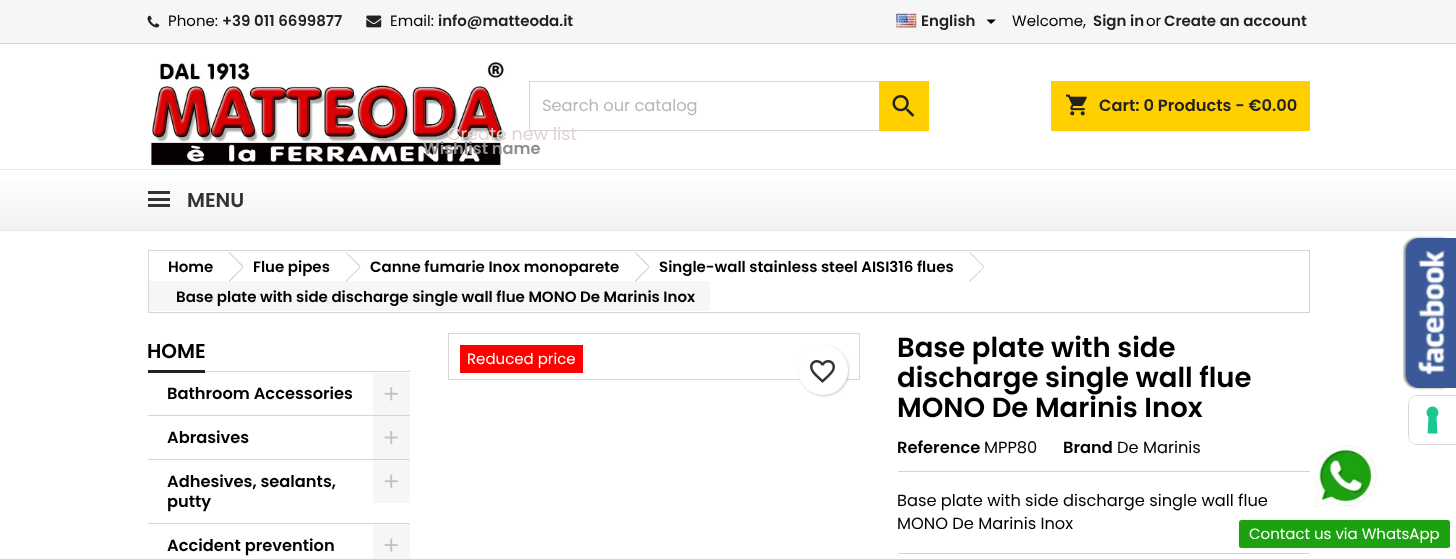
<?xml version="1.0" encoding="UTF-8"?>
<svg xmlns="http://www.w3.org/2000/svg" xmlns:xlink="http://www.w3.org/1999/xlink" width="1456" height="559">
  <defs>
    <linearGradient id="g1" gradientUnits="userSpaceOnUse" x1="728" y1="170" x2="728" y2="230"><stop offset="0" stop-color="#ffffff" /><stop offset="1" stop-color="#f2f2f2" /></linearGradient>
  </defs>
  <rect width="100%" height="100%" fill="#ffffff" />
  <rect width="1456" height="43" fill="#f6f6f6" />
  <rect y="43" width="1456" height="1" fill="#d6d4d4" />
  <image x="147" y="15" width="13" height="13" xlink:href="image1.png" />
  <image x="366" y="15" width="16" height="13" xlink:href="image2.png" />
  <image x="896" y="13" width="21" height="15" xlink:href="image3.png" />
  <path d="M 986.5 19.5 h 9.5 l -5 4.5 z" fill="#000000" />
  <image x="151" y="62" width="354" height="104" xlink:href="image4.png" />
  <rect x="529.5" y="81.5" width="399" height="49" fill="none" stroke="#d6d4d4" />
  <rect x="879" y="81" width="50" height="50" fill="#ffcf00" />
  <image x="892" y="95" width="23" height="22" xlink:href="image5.png" />
  <rect x="1051" y="81" width="259" height="50" fill="#ffcf00" />
  <image x="1066" y="94" width="21" height="22" xlink:href="image6.png" />
  <rect y="182" width="1456" height="48" fill="url(#g1)" />
  <rect y="169" width="1456" height="1" fill="#e7e7e7" />
  <rect y="230" width="1456" height="1" fill="#e7e7e7" />
  <rect x="148" y="191" width="22" height="3" fill="#333333" />
  <rect x="148" y="198" width="22" height="3" fill="#333333" />
  <rect x="148" y="204" width="22" height="3" fill="#333333" />
  <image x="1314" y="445" width="63" height="63" xlink:href="image7.png" />
  <rect x="1239" y="520" width="211" height="28" rx="2.5" fill="#1da110" />
  <rect x="148.5" y="250.5" width="1161" height="62" fill="none" stroke="#d6d4d4" />
  <rect x="149" y="281" width="561" height="30" fill="#f6f6f6" />
  <path d="M 230 252.5 l 12.5 12.5 c 1 1 1 2.5 0 3.5 l -12.5 12.5 c -1 1 -2.5 1 -3.5 0 l -12 -12.5 c -1 -1 -1 -2.5 0 -3.5 l 12 -12.5 c 1 -1 2.5 -1 3.5 0 z" fill="#ffffff" />
  <path d="M 229.5 252 l 14 14 l -1 1 l -14 -14.5 z m 13 15 l 1 0.5 l -14 14.5 l -1 -1 z" fill="#d6d4d4" />
  <path d="M 347 252.5 l 12.5 12.5 c 1 1 1 2.5 0 3.5 l -12.5 12.5 c -1 1 -2.5 1 -3.5 0 l -12.5 -12.5 c -1 -1 -1 -2.5 0 -3.5 l 12.5 -12.5 c 1 -1 2.5 -1 3.5 0 z" fill="#ffffff" />
  <path d="M 346 252 l 14.5 14 l -1 1 l -14 -14.5 z m 13.5 15 l 1 0.5 l -14.5 14.5 l -0.5 -1 z" fill="#d6d4d4" />
  <path d="M 636 252.5 l 12.5 12.5 c 1 1 1 2.5 0 3.5 l -12.5 12.5 c -0.5 1 -2.5 1 -3.5 0 l -12 -12.5 c -1 -1 -1 -2.5 0 -3.5 l 12 -12.5 c 1 -1 3 -1 3.5 0 z" fill="#ffffff" />
  <path d="M 635.5 252 l 14 14 l -1 1 l -14 -14.5 z m 13 15 l 1 0.5 l -14 14.5 l -1 -1 z" fill="#d6d4d4" />
  <path d="M 970 252 l 14 14 l -0.5 1 l -14.5 -14.5 z m 13.5 15 l 0.5 0.5 l -14 14.5 l -1 -1 z" fill="#d6d4d4" />
  <rect x="205" y="371" width="205" height="1" fill="#d6d4d4" />
  <rect x="148" y="370" width="57" height="3" fill="#222222" />
  <rect x="148" y="415" width="262" height="1" fill="#d6d4d4" />
  <rect x="373" y="373" width="37" height="42" fill="#f6f6f6" />
  <image x="384" y="387" width="14" height="14" xlink:href="image8.png" />
  <rect x="148" y="459" width="262" height="1" fill="#d6d4d4" />
  <rect x="373" y="416" width="37" height="43" fill="#f6f6f6" />
  <image x="384" y="431" width="14" height="13" xlink:href="image9.png" />
  <rect x="148" y="523" width="262" height="1" fill="#d6d4d4" />
  <rect x="373" y="460" width="37" height="43" fill="#f6f6f6" />
  <image x="384" y="474" width="14" height="14" xlink:href="image10.png" />
  <rect x="373" y="524" width="37" height="35" fill="#f6f6f6" />
  <image x="384" y="538" width="14" height="14" xlink:href="image11.png" />
  <rect x="448.5" y="333.5" width="411" height="46" fill="none" stroke="#d6d4d4" />
  <rect x="460" y="345" width="123" height="28" fill="#ff0000" />
  <rect x="799" y="346" width="50" height="50" rx="25" fill="#000000" fill-opacity="0.2" filter="blur(1px)" />
  <circle cx="823" cy="370" r="25" fill="#ffffff" />
  <image x="810" y="360" width="25" height="23" xlink:href="image12.png" />
  <rect x="898" y="553" width="412" height="1" fill="#d6d4d4" />
  <rect x="898" y="471" width="412" height="1" fill="#d6d4d4" />
  <rect x="1404" y="238" width="50" height="150" rx="13" fill="#000000" fill-opacity="0.5" filter="blur(1px)" />
  <path d="M 1419 238 h 37 v 150 h -37 c -7 0 -13 -6 -13 -13 v -124 c 0 -7 6 -13 13 -13 z" fill="#3b5998" />
  <image x="1418" y="250" width="27" height="125" xlink:href="image13.png" />
  <path d="M 1417 395.5 h 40.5 v 49 h -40.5 c -4.5 0 -8.5 -4 -8.5 -8.5 v -32 c 0 -4.5 4 -8.5 8.5 -8.5 z" fill="none" stroke="#d9d9d9" />
  <path d="M 1417 396 h 39 v 48 h -39 c -4.5 0 -8 -3.5 -8 -8 v -32 c 0 -4.5 3.5 -8 8 -8 z" fill="#ffffff" />
  <path d="M 1432.5 406.5 c 5.5 0 8 7 4 10.5 l 1 16.5 h -10 l 1 -16.5 c -4 -3.5 -1.5 -10.5 4 -10.5 z" fill="#1cc691" fill-rule="evenodd" />
  <text x="168" y="26" style="font-family: Poppins; font-size: 15px; fill: #000000">Phone:</text>
  <text x="222" y="26" style="font-family: Poppins; font-size: 15px; font-weight: 600; fill: #222222">+39 011 6699877</text>
  <text x="390" y="26" style="font-family: Poppins; font-size: 15px; fill: #000000">Email:</text>
  <text x="438" y="26" style="font-family: Poppins; font-size: 15px; font-weight: 600; fill: #222222">info@matteoda.it</text>
  <text x="921" y="26" style="font-family: Poppins; font-size: 15px; font-weight: 600; fill: #222222">English</text>
  <text x="1012" y="26" style="font-family: Poppins; font-size: 15px; fill: #000000">Welcome,</text>
  <text x="1093" y="26" style="font-family: Poppins; font-size: 15px; font-weight: 600; fill: #222222">Sign in</text>
  <text x="1146" y="26" style="font-family: Poppins; font-size: 15px; fill: #000000">or</text>
  <text x="1164" y="26" style="font-family: Poppins; font-size: 15px; font-weight: 600; fill: #222222">Create an account</text>
  <text x="542" y="111" style="font-family: Poppins; font-size: 16.25px; fill: #b7b7b7">Search our catalog</text>
  <text x="1099" y="111" style="font-family: Poppins; font-size: 16.25px; font-weight: 600; fill: #222222">Cart: 0 Products - €0.00</text>
  <text x="187" y="207" style="font-family: Poppins; font-size: 20px; font-weight: 600; fill: #333333">MENU</text>
  <text x="447" y="140" style="font-family: Poppins; font-size: 17.5px; fill: #e2d3d3">Create new list</text>
  <text x="423" y="154" style="font-family: Poppins; font-size: 16.25px; font-weight: 600; fill: #908e8d">Wishlist name</text>
  <text x="1249" y="539" style="font-family: Poppins; font-size: 15px; fill: #ffffff">Contact us via WhatsApp</text>
  <text x="168" y="272" style="font-family: Poppins; font-size: 15px; font-weight: 600; fill: #000000">Home</text>
  <text x="253" y="272" style="font-family: Poppins; font-size: 15px; font-weight: 600; fill: #000000">Flue pipes</text>
  <text x="370" y="272" style="font-family: Poppins; font-size: 15px; font-weight: 600; fill: #000000">Canne fumarie Inox monoparete</text>
  <text x="659" y="272" style="font-family: Poppins; font-size: 15px; font-weight: 600; fill: #000000">Single-wall stainless steel AISI316 flues</text>
  <text x="176" y="302" style="font-family: Poppins; font-size: 15px; font-weight: 600; fill: #000000">Base plate with side discharge single wall flue MONO De Marinis Inox</text>
  <text x="147" y="358" style="font-family: Poppins; font-size: 20px; font-weight: 600; fill: #000000">HOME</text>
  <text x="167" y="399" style="font-family: Poppins; font-size: 16.25px; font-weight: 600; fill: #000000">Bathroom Accessories</text>
  <text x="167" y="443" style="font-family: Poppins; font-size: 16.25px; font-weight: 600; fill: #000000">Abrasives</text>
  <text x="167" y="487" style="font-family: Poppins; font-size: 16.25px; font-weight: 600; fill: #000000">Adhesives, sealants,</text>
  <text x="167" y="507" style="font-family: Poppins; font-size: 16.25px; font-weight: 600; fill: #000000">putty</text>
  <text x="167" y="551" style="font-family: Poppins; font-size: 16.25px; font-weight: 600; fill: #000000">Accident prevention</text>
  <text x="467" y="364" style="font-family: Poppins; font-size: 15px; fill: #ffffff">Reduced price</text>
  <text x="897" y="357" style="font-family: Poppins; font-size: 27.5px; font-weight: 600; fill: #000000">Base plate with side</text>
  <text x="897" y="387" style="font-family: Poppins; font-size: 27.5px; font-weight: 600; fill: #000000">discharge single wall flue</text>
  <text x="897" y="417" style="font-family: Poppins; font-size: 27.5px; font-weight: 600; fill: #000000">MONO De Marinis Inox</text>
  <text x="897" y="453" style="font-family: Poppins; font-size: 16.25px; font-weight: 600; fill: #000000">Reference</text>
  <text x="984" y="453" style="font-family: Poppins; font-size: 16.25px; fill: #000000">MPP80</text>
  <text x="1063" y="453" style="font-family: Poppins; font-size: 16.25px; font-weight: 600; fill: #000000">Brand</text>
  <text x="1117" y="453" style="font-family: Poppins; font-size: 16.25px; fill: #000000">De Marinis</text>
  <text x="897" y="506" style="font-family: Poppins; font-size: 16.25px; fill: #000000">Base plate with side discharge single wall flue</text>
  <text x="897" y="529" style="font-family: Poppins; font-size: 16.25px; fill: #000000">MONO De Marinis Inox</text>
</svg>
